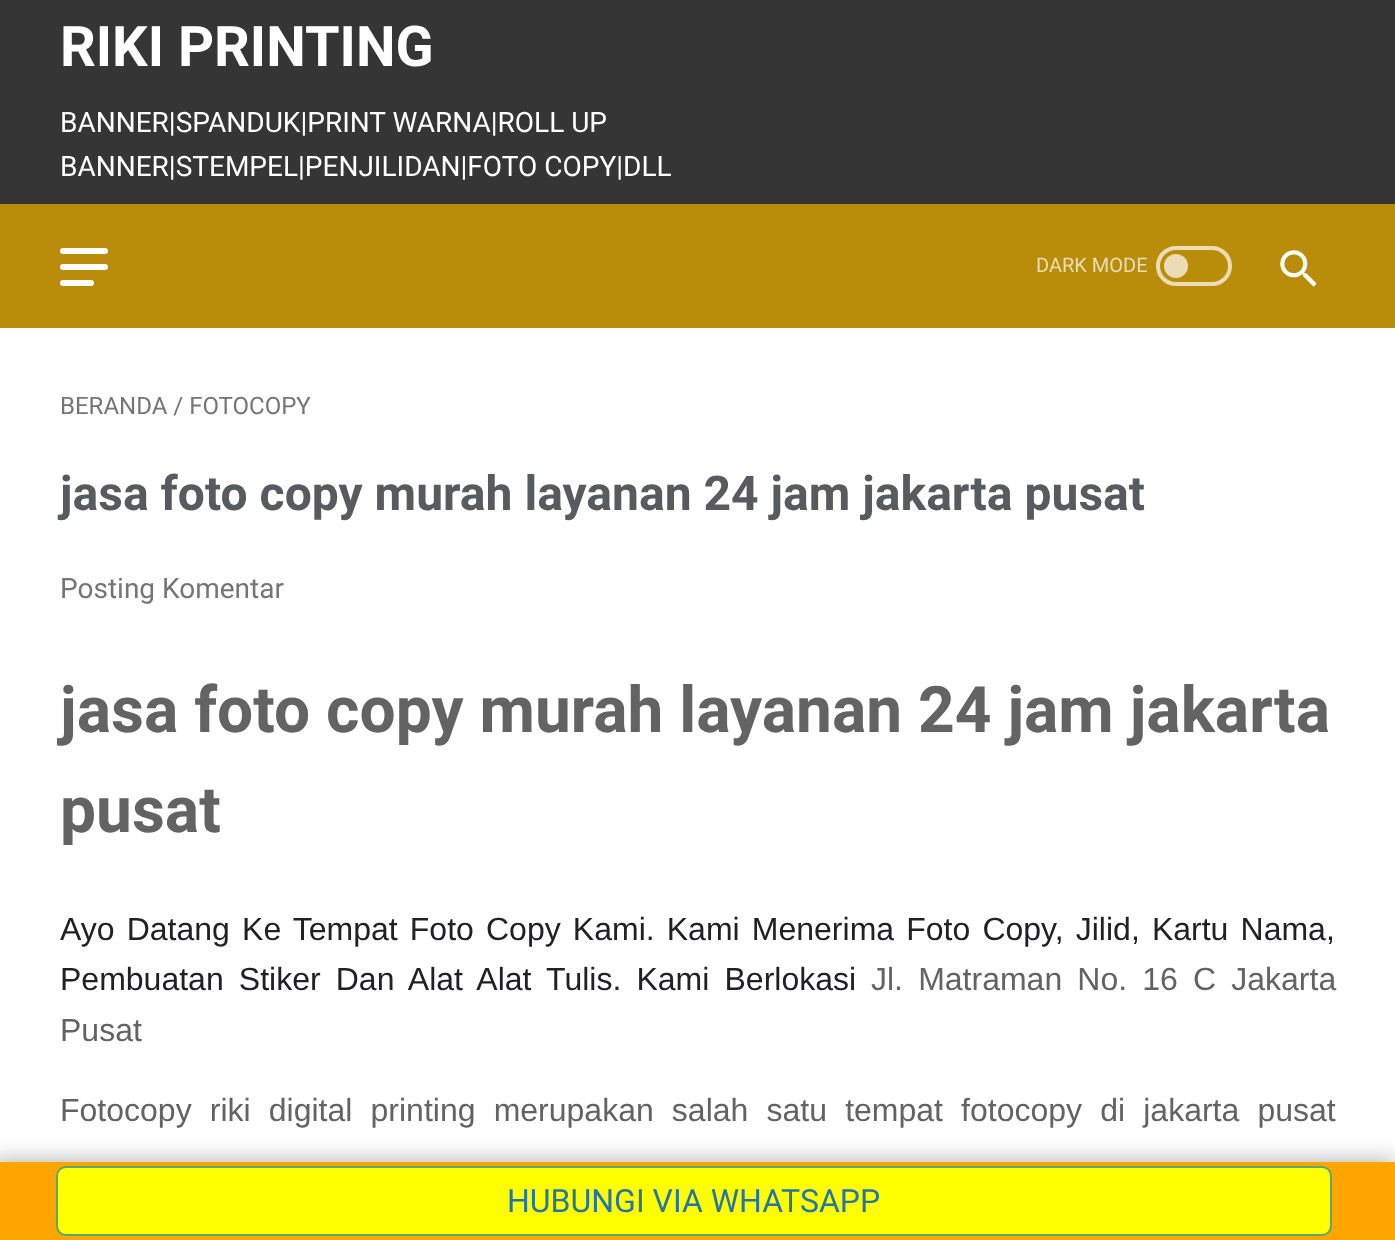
<?xml version="1.0" encoding="UTF-8"?>
<svg xmlns="http://www.w3.org/2000/svg" xmlns:xlink="http://www.w3.org/1999/xlink" width="1395" height="1240">
  <rect width="100%" height="100%" fill="#b98d09" />
  <rect width="1395" height="204" fill="#353535" />
  <rect x="60" y="248" width="48" height="6" rx="3" fill="#ffffff" />
  <rect x="60" y="264" width="48" height="6" rx="3" fill="#ffffff" />
  <rect x="60" y="280" width="34" height="6" rx="3" fill="#ffffff" />
  <rect x="1158" y="248" width="72" height="36" rx="18" fill="none" stroke="#eaddb5" stroke-width="4" />
  <circle cx="1176" cy="266" r="12" fill="#eaddb5" />
  <image x="1280" y="250" width="37" height="37" xlink:href="image1.png" />
  <rect y="328" width="1395" height="834" fill="#ffffff" />
  <rect x="-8" y="1158" width="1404" height="78" fill="#c0c0c0" filter="blur(10px)" />
  <rect y="1162" width="1395" height="78" fill="#ffa500" />
  <rect x="57" y="1167" width="1274" height="68" rx="9" fill="#ffff00" stroke="#56aa71" stroke-width="2" />
  <text x="60" y="66" style="font-family: Roboto; font-size: 56px; font-weight: bold; fill: #ffffff">RIKI PRINTING</text>
  <text x="60" y="132" style="font-family: Roboto; font-size: 28px; fill: #ffffff">BANNER|SPANDUK|PRINT WARNA|ROLL UP</text>
  <text x="60" y="176" style="font-family: Roboto; font-size: 28px; fill: #ffffff">BANNER|STEMPEL|PENJILIDAN|FOTO COPY|DLL</text>
  <text x="1036" y="272" style="font-family: Roboto; font-size: 20px; fill: #eaddb5">DARK MODE</text>
  <text x="60" y="414" style="font-family: Roboto; font-size: 24px; fill: #757575">BERANDA / FOTOCOPY</text>
  <text x="60" y="510" style="font-family: Roboto; font-size: 48px; font-weight: bold; fill: #575a5f">jasa foto copy murah layanan 24 jam jakarta pusat</text>
  <text x="60" y="598" style="font-family: Roboto; font-size: 28px; fill: #757575">Posting Komentar</text>
  <text x="60" y="732" style="font-family: Roboto; font-size: 64px; font-weight: bold; fill: #636363">jasa foto copy murah layanan 24 jam jakarta</text>
  <text x="60" y="832" style="font-family: Roboto; font-size: 64px; font-weight: bold; fill: #636363">pusat</text>
  <text x="60" y="940" word-spacing="3.25" style="font-family: Liberation Sans; font-size: 32px; fill: #202124">Ayo Datang Ke Tempat Foto Copy Kami. Kami Menerima Foto Copy, Jilid, Kartu Nama,</text>
  <text x="60" y="990" word-spacing="6.25" style="font-family: Liberation Sans; font-size: 32px; fill: #202124">Pembuatan Stiker Dan Alat Alat Tulis. Kami Berlokasi</text>
  <text x="871" y="990" word-spacing="6.25" style="font-family: Liberation Sans; font-size: 32px; fill: #636363">Jl. Matraman No. 16 C Jakarta</text>
  <text x="60" y="1041" style="font-family: Liberation Sans; font-size: 32px; fill: #636363">Pusat</text>
  <text x="60" y="1121" word-spacing="9.25" style="font-family: Liberation Sans; font-size: 32px; fill: #636363">Fotocopy riki digital printing merupakan salah satu tempat fotocopy di jakarta pusat</text>
  <text x="507" y="1212" style="font-family: Roboto; font-size: 32px; fill: #2675a6">HUBUNGI VIA WHATSAPP</text>
</svg>
